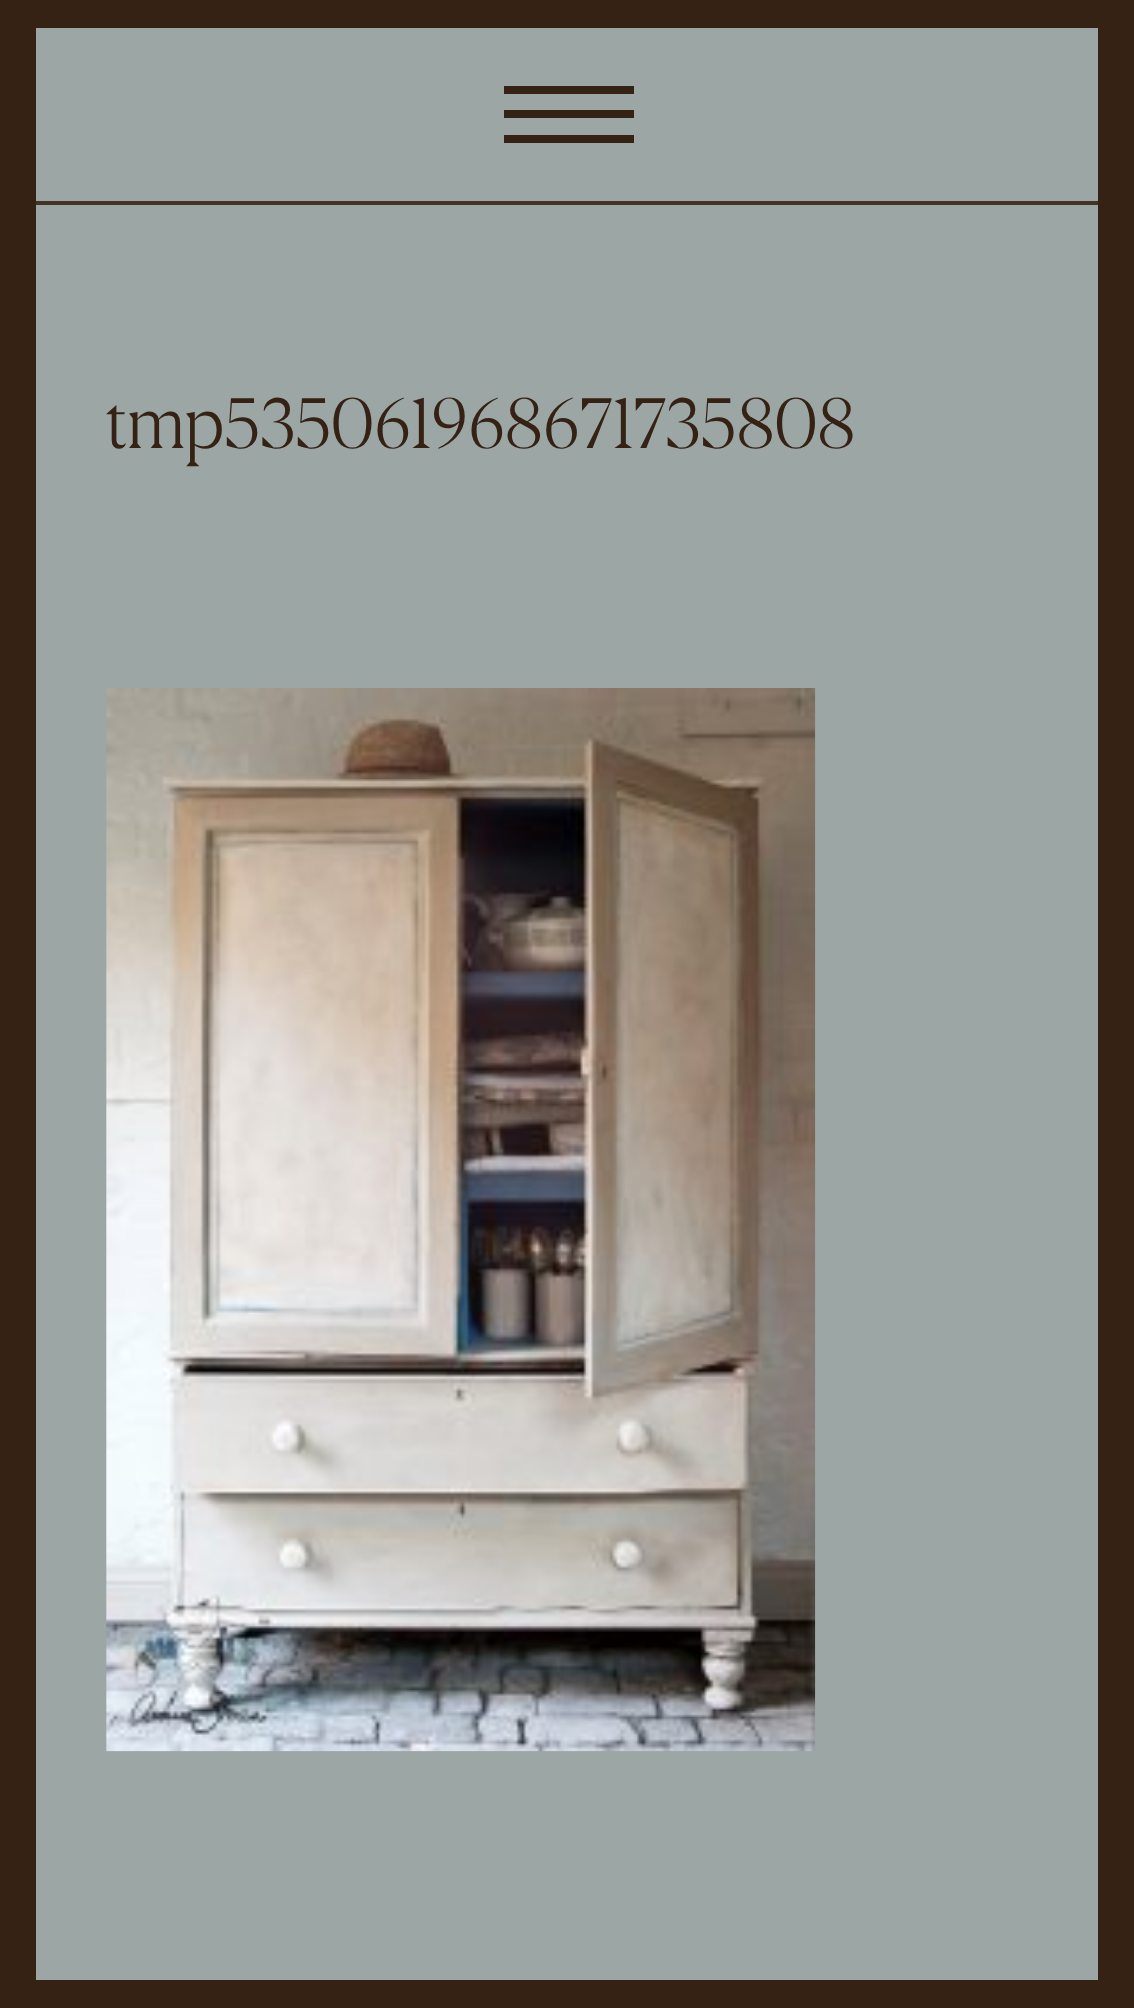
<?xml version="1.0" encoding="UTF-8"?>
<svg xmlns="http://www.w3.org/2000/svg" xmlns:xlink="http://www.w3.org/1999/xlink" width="1134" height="2008">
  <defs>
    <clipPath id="clip1"><rect x="504" y="48" width="130" height="132" /></clipPath>
  </defs>
  <rect width="100%" height="100%" fill="#9ba6a5" />
  <rect x="36" width="1062" height="28" fill="#352215" />
  <rect width="36" height="1980" fill="#352215" />
  <rect x="1098" width="36" height="1980" fill="#352215" />
  <g clip-path="url(#clip1)">
    <path d="M 503 86 h 131 v 8 h -131 z m 0 24 h 131 v 8 h -131 z m 0 25 h 131 v 8 h -131 z" fill="#352215" />
  </g>
  <rect x="36" y="201" width="1062" height="4" fill="#423327" />
  <image x="106" y="688" width="710" height="1064" xlink:href="image1.png" />
  <rect y="1980" width="1134" height="28" fill="#352215" />
  <text x="106" y="448" style="font-family: 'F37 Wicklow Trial'; font-size: 78px; font-weight: 300; fill: #352215">tmp535061968671735808</text>
</svg>
